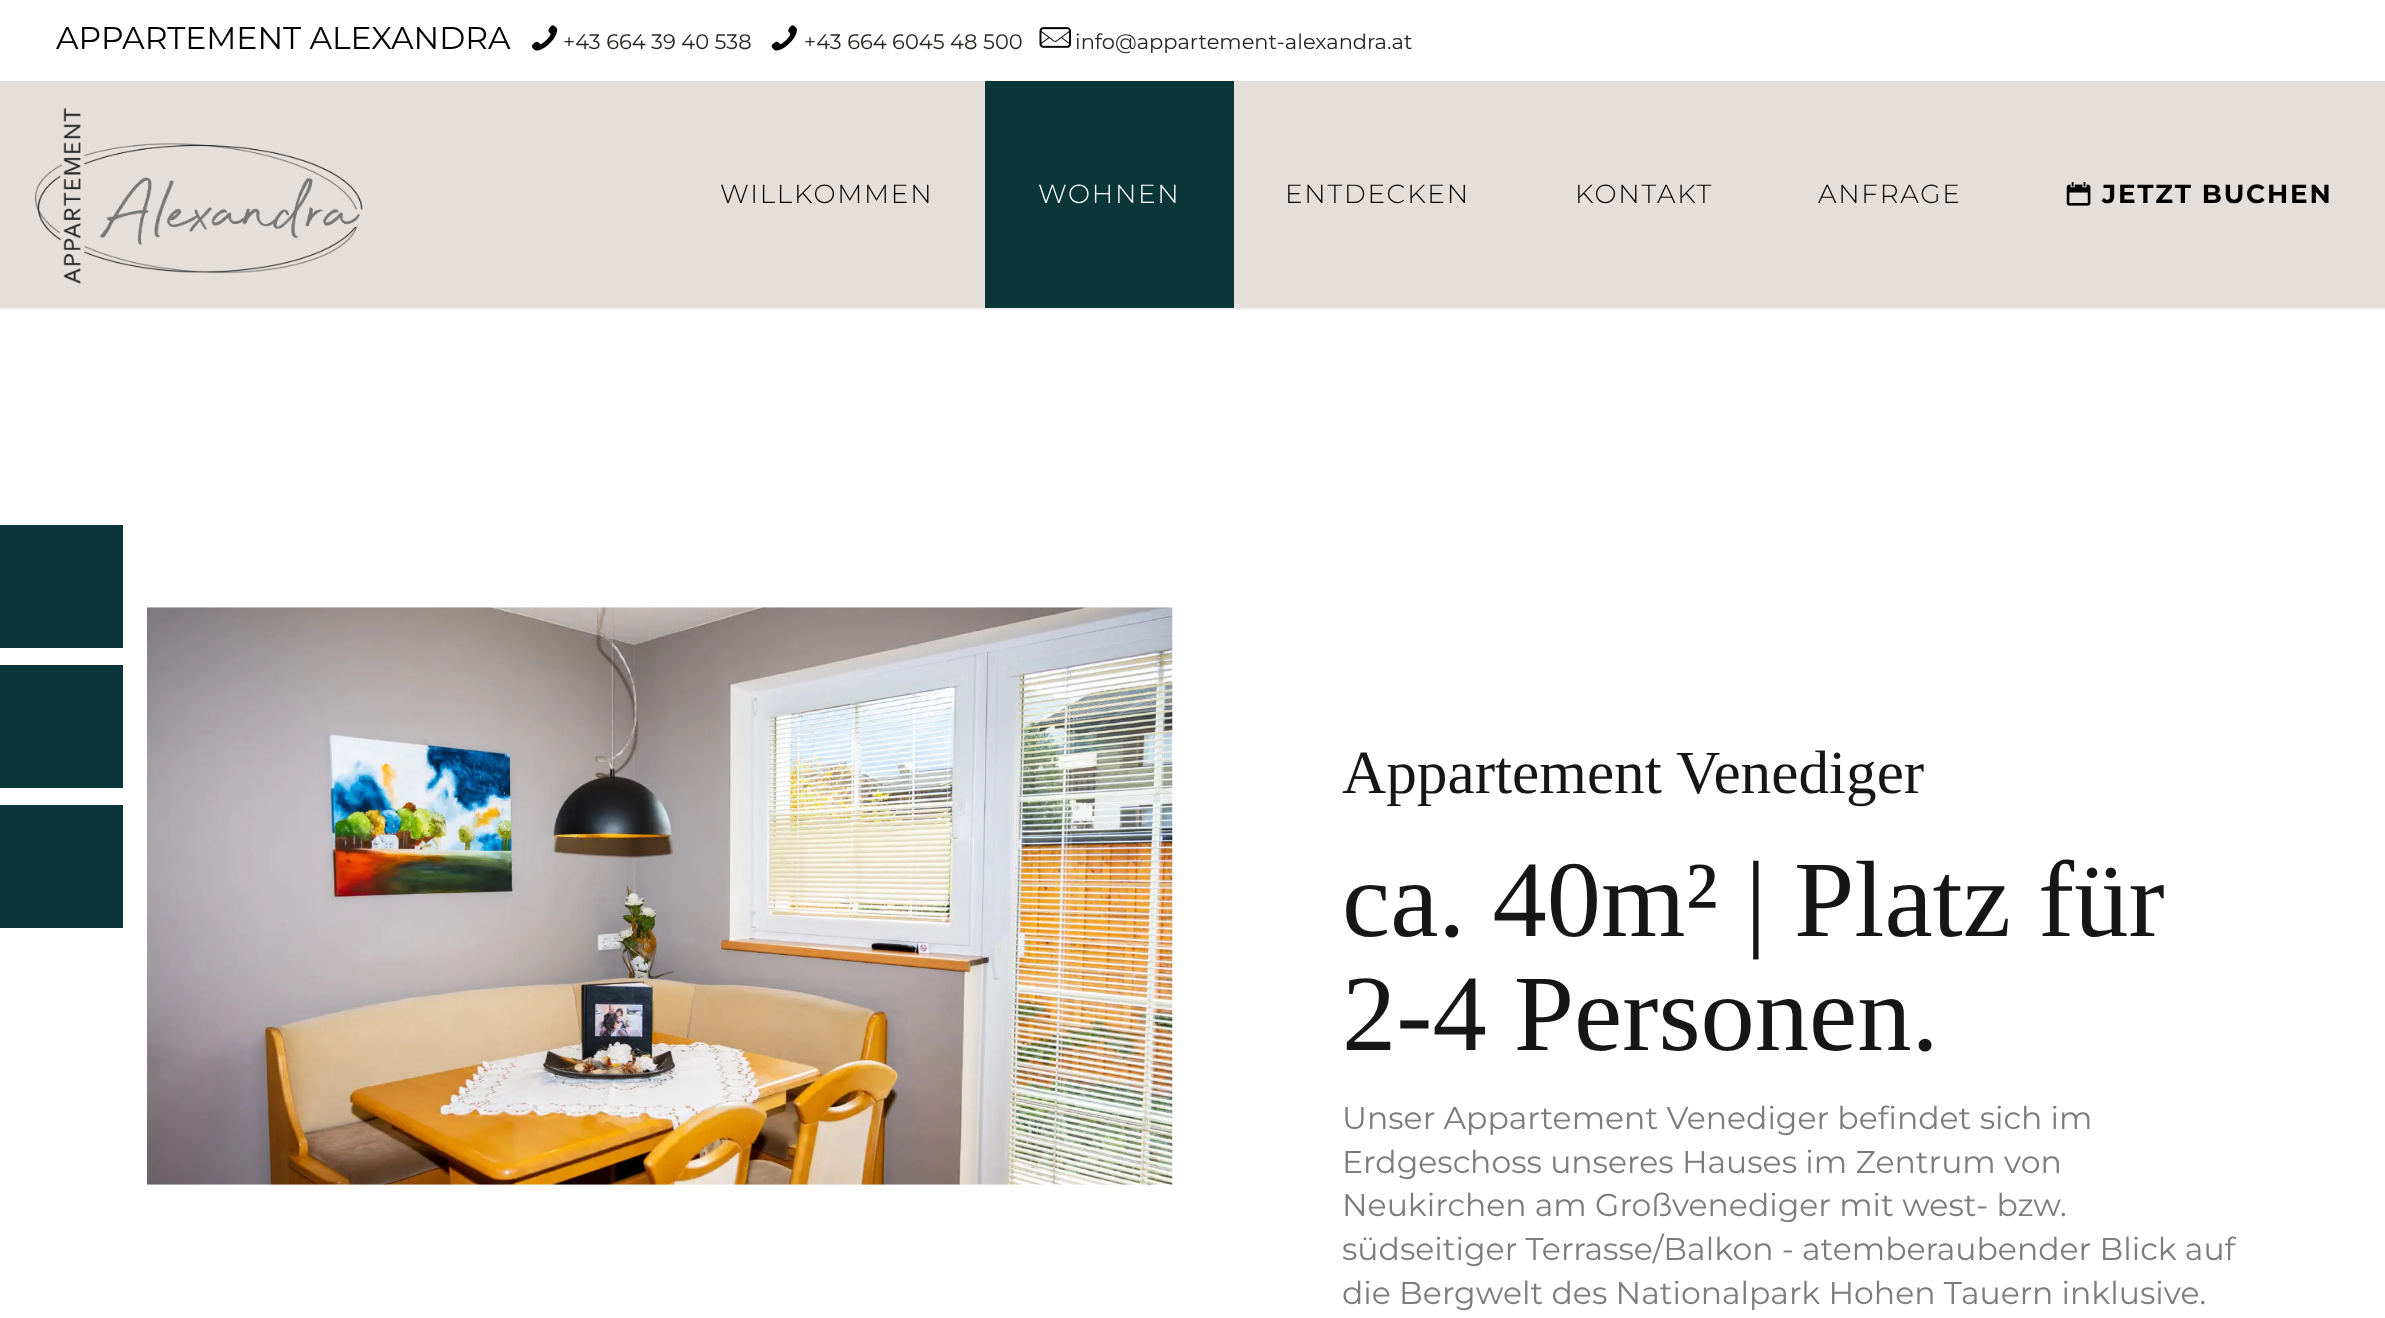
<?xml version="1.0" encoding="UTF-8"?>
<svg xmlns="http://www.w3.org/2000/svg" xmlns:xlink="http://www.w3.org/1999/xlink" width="2385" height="1318">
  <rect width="100%" height="100%" fill="#ffffff" />
  <image x="532" y="25" width="26" height="26" xlink:href="image1.png" />
  <image x="771" y="25" width="26" height="26" xlink:href="image2.png" />
  <image x="1039" y="27" width="32" height="21" xlink:href="image3.png" />
  <rect y="81" width="2385" height="227" fill="#e4dfdb" />
  <rect y="308" width="2385" height="2" fill="#f2f2f2" />
  <image x="35" y="108" width="328" height="176" xlink:href="image4.png" />
  <rect x="985" y="81" width="249" height="227" fill="#0a3539" />
  <image x="2066" y="182" width="25" height="24" xlink:href="image5.png" />
  <image x="147" y="607" width="1026" height="578" xlink:href="image6.png" />
  <rect y="525" width="123" height="123" fill="#0a3539" />
  <rect y="665" width="123" height="123" fill="#0a3539" />
  <rect y="805" width="123" height="123" fill="#0a3539" />
  <text x="56" y="49" style="font-family: Montserrat; font-size: 31.5px; font-weight: 100; fill: #000000">APPARTEMENT ALEXANDRA</text>
  <text x="563" y="49" style="font-family: Montserrat; font-size: 21px; font-weight: 100; fill: #242522">+43 664 39 40 538</text>
  <text x="804" y="49" style="font-family: Montserrat; font-size: 21px; font-weight: 100; fill: #242522">+43 664 6045 48 500</text>
  <text x="1075" y="49" style="font-family: Montserrat; font-size: 21px; font-weight: 100; fill: #242522">info@appartement-alexandra.at</text>
  <text x="720" y="203" style="font-family: 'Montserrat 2'; font-size: 26.25px; font-weight: 100; letter-spacing: 1.75px; fill: #000000">WILLKOMMEN</text>
  <text x="1038" y="203" style="font-family: 'Montserrat 2'; font-size: 26.25px; font-weight: 100; letter-spacing: 1.75px; fill: #ffffff">WOHNEN</text>
  <text x="1285" y="203" style="font-family: 'Montserrat 2'; font-size: 26.25px; font-weight: 100; letter-spacing: 1.75px; fill: #000000">ENTDECKEN</text>
  <text x="1575" y="203" style="font-family: 'Montserrat 2'; font-size: 26.25px; font-weight: 100; letter-spacing: 1.75px; fill: #000000">KONTAKT</text>
  <text x="1818" y="203" style="font-family: 'Montserrat 2'; font-size: 26.25px; font-weight: 100; letter-spacing: 1.75px; fill: #000000">ANFRAGE</text>
  <text x="2102" y="203" style="font-family: 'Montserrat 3'; font-size: 26.25px; font-weight: 100; letter-spacing: 1.75px; fill: #000000">JETZT BUCHEN</text>
  <text x="1342" y="793" style="font-family: Liberation Serif; font-size: 61.25px; fill: #161616">Appartement Venediger</text>
  <text x="1342" y="936" style="font-family: Liberation Serif; font-size: 108.5px; fill: #161616">ca. 40m² | Platz für</text>
  <text x="1342" y="1050" style="font-family: Liberation Serif; font-size: 108.5px; fill: #161616">2-4 Personen.</text>
  <text x="1342" y="1129" style="font-family: Montserrat; font-size: 31.5px; font-weight: 100; fill: #7c7c7c">Unser Appartement Venediger befindet sich im</text>
  <text x="1342" y="1173" style="font-family: Montserrat; font-size: 31.5px; font-weight: 100; fill: #7c7c7c">Erdgeschoss unseres Hauses im Zentrum von</text>
  <text x="1342" y="1216" style="font-family: Montserrat; font-size: 31.5px; font-weight: 100; fill: #7c7c7c">Neukirchen am Großvenediger mit west- bzw.</text>
  <text x="1342" y="1260" style="font-family: Montserrat; font-size: 31.5px; font-weight: 100; fill: #7c7c7c">südseitiger Terrasse/Balkon - atemberaubender Blick auf</text>
  <text x="1342" y="1304" style="font-family: Montserrat; font-size: 31.5px; font-weight: 100; fill: #7c7c7c">die Bergwelt des Nationalpark Hohen Tauern inklusive.</text>
</svg>
